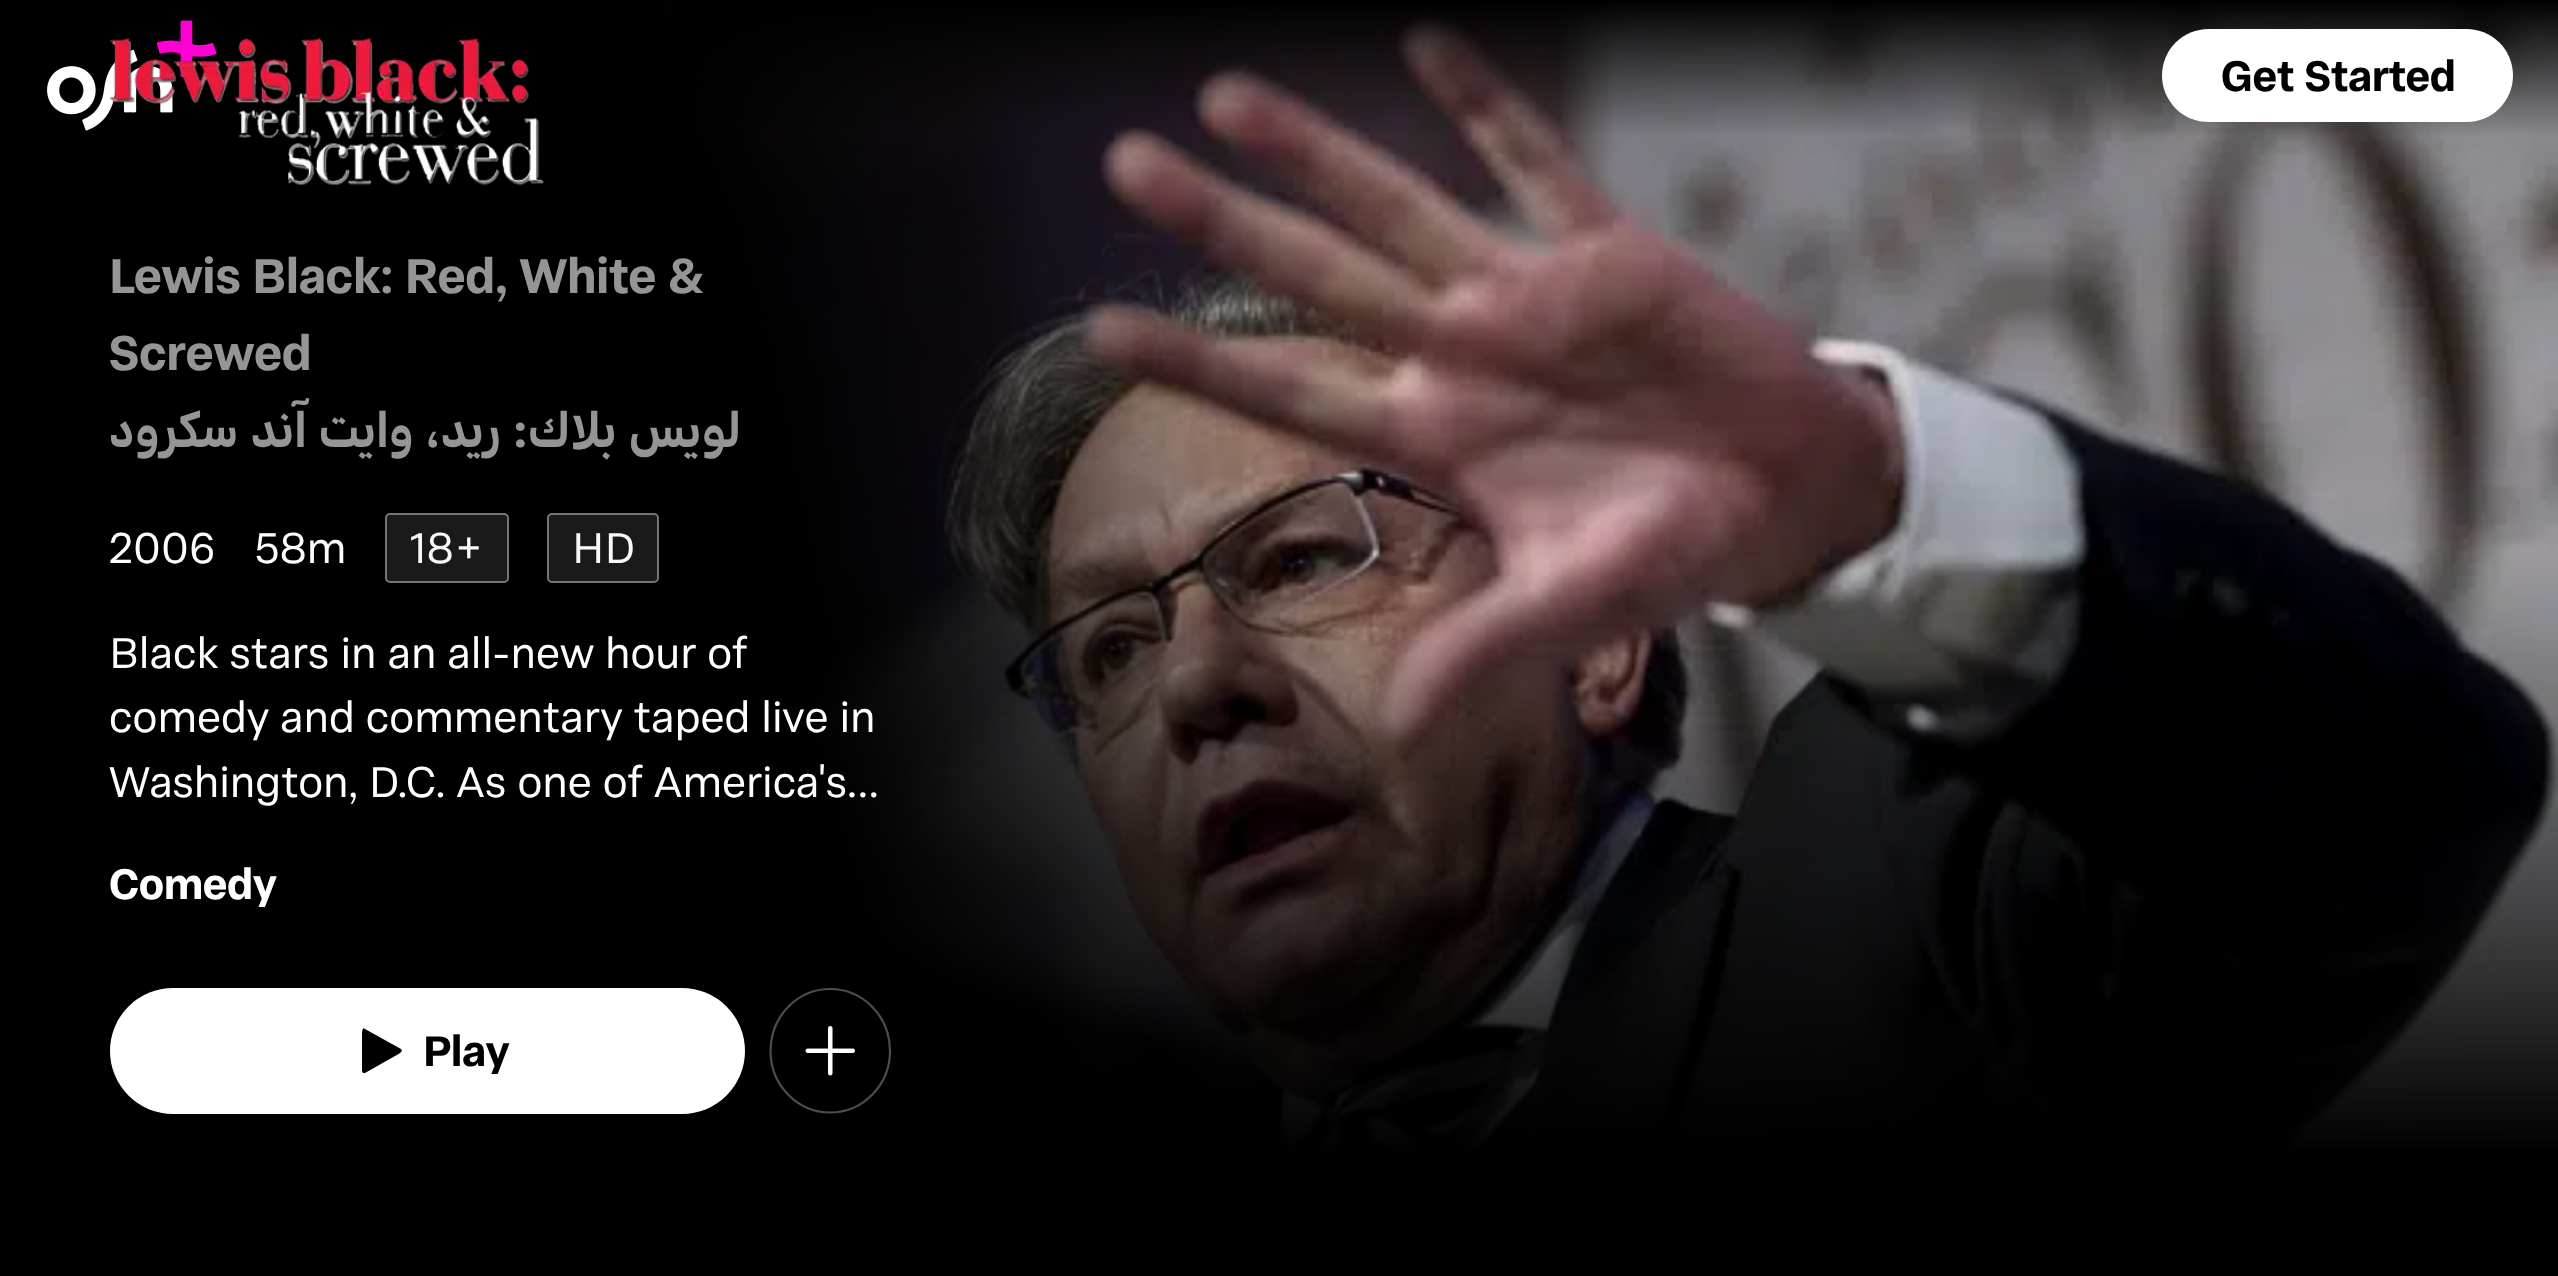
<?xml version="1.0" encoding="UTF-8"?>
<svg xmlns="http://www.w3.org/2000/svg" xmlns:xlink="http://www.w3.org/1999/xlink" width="2558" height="1276">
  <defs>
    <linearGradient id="g1" gradientUnits="userSpaceOnUse" x1="1279" y1="0" x2="1279" y2="137"><stop offset="0" stop-color="#000000" /><stop offset="1" stop-color="#000000" stop-opacity="0" /></linearGradient>
  </defs>
  <rect width="100%" height="100%" fill="#000000" />
  <image x="513" y="1" width="2045" height="1151" xlink:href="image1.png" />
  <rect x="674" y="1" width="1884" height="133" fill="url(#g1)" />
  <image x="47" y="20" width="170" height="111" xlink:href="image2.png" />
  <rect x="2162" y="29" width="351" height="93" rx="46.5" fill="#ffffff" />
  <image x="110" y="38" width="435" height="148" xlink:href="image3.png" />
  <rect x="385" y="513" width="124" height="70" rx="5" fill="#1a1a1a" />
  <rect x="386" y="514" width="122" height="68" rx="4" fill="none" stroke="#ffffff" stroke-opacity="0.4" stroke-width="2" />
  <rect x="547" y="513" width="112" height="70" rx="5" fill="#1a1a1a" />
  <rect x="548" y="514" width="110" height="68" rx="4" fill="none" stroke="#ffffff" stroke-opacity="0.4" stroke-width="2" />
  <rect x="110" y="988" width="635" height="126" rx="63" fill="#ffffff" />
  <path d="M 401 1049 c 3 2 -2 5 -6 7 l -30 17 h -2 l -1 -2 v -34 c 0 -4 0 -11 3 -8 z" fill="#000000" />
  <path d="M 830 989 c 33 0 60 27.5 60 62 c 0 34 -27 61.5 -60 61.5 c -32.5 0 -59.5 -27.5 -59.5 -61.5 c 0 -34.5 27 -62 59.5 -62 z" fill="none" stroke="#4d4d4d" stroke-width="2.2" />
  <image x="805" y="1026" width="50" height="50" xlink:href="image4.png" />
  <text x="2221" y="91" style="font-family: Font; font-size: 45px; font-weight: bold; fill: #000000">Get Started</text>
  <text x="109" y="293" style="font-family: Font; font-size: 51.5px; font-weight: bold; fill: #959595">Lewis Black: Red, White &amp;</text>
  <text x="109" y="370" style="font-family: Font; font-size: 51.5px; font-weight: bold; fill: #959595">Screwed</text>
  <text x="741" y="447" style="font-family: Font; font-size: 51.5px; font-weight: bold; direction: rtl; fill: #959595">لويس بلاك: ريد، وايت آند سكرود</text>
  <text x="109" y="563" style="font-family: Font; font-size: 45px; fill: #ffffff">2006</text>
  <text x="254" y="563" style="font-family: Font; font-size: 45px; fill: #ffffff">58m</text>
  <text x="410" y="563" style="font-family: Font; font-size: 45px; fill: #f8f8f8">18+</text>
  <text x="572" y="563" style="font-family: Font; font-size: 45px; fill: #f8f8f8">HD</text>
  <text x="109" y="668" style="font-family: Font; font-size: 45px; fill: #ffffff">Black stars in an all-new hour of</text>
  <text x="109" y="732" style="font-family: Font; font-size: 45px; fill: #ffffff">comedy and commentary taped live in</text>
  <text x="109" y="797" style="font-family: Font; font-size: 45px; fill: #ffffff">Washington, D.C. As one of America's…</text>
  <text x="109" y="899" style="font-family: Font; font-size: 45px; font-weight: bold; fill: #ffffff">Comedy</text>
  <text x="423" y="1066" style="font-family: Font; font-size: 45px; font-weight: bold; fill: #000000">Play</text>
</svg>
